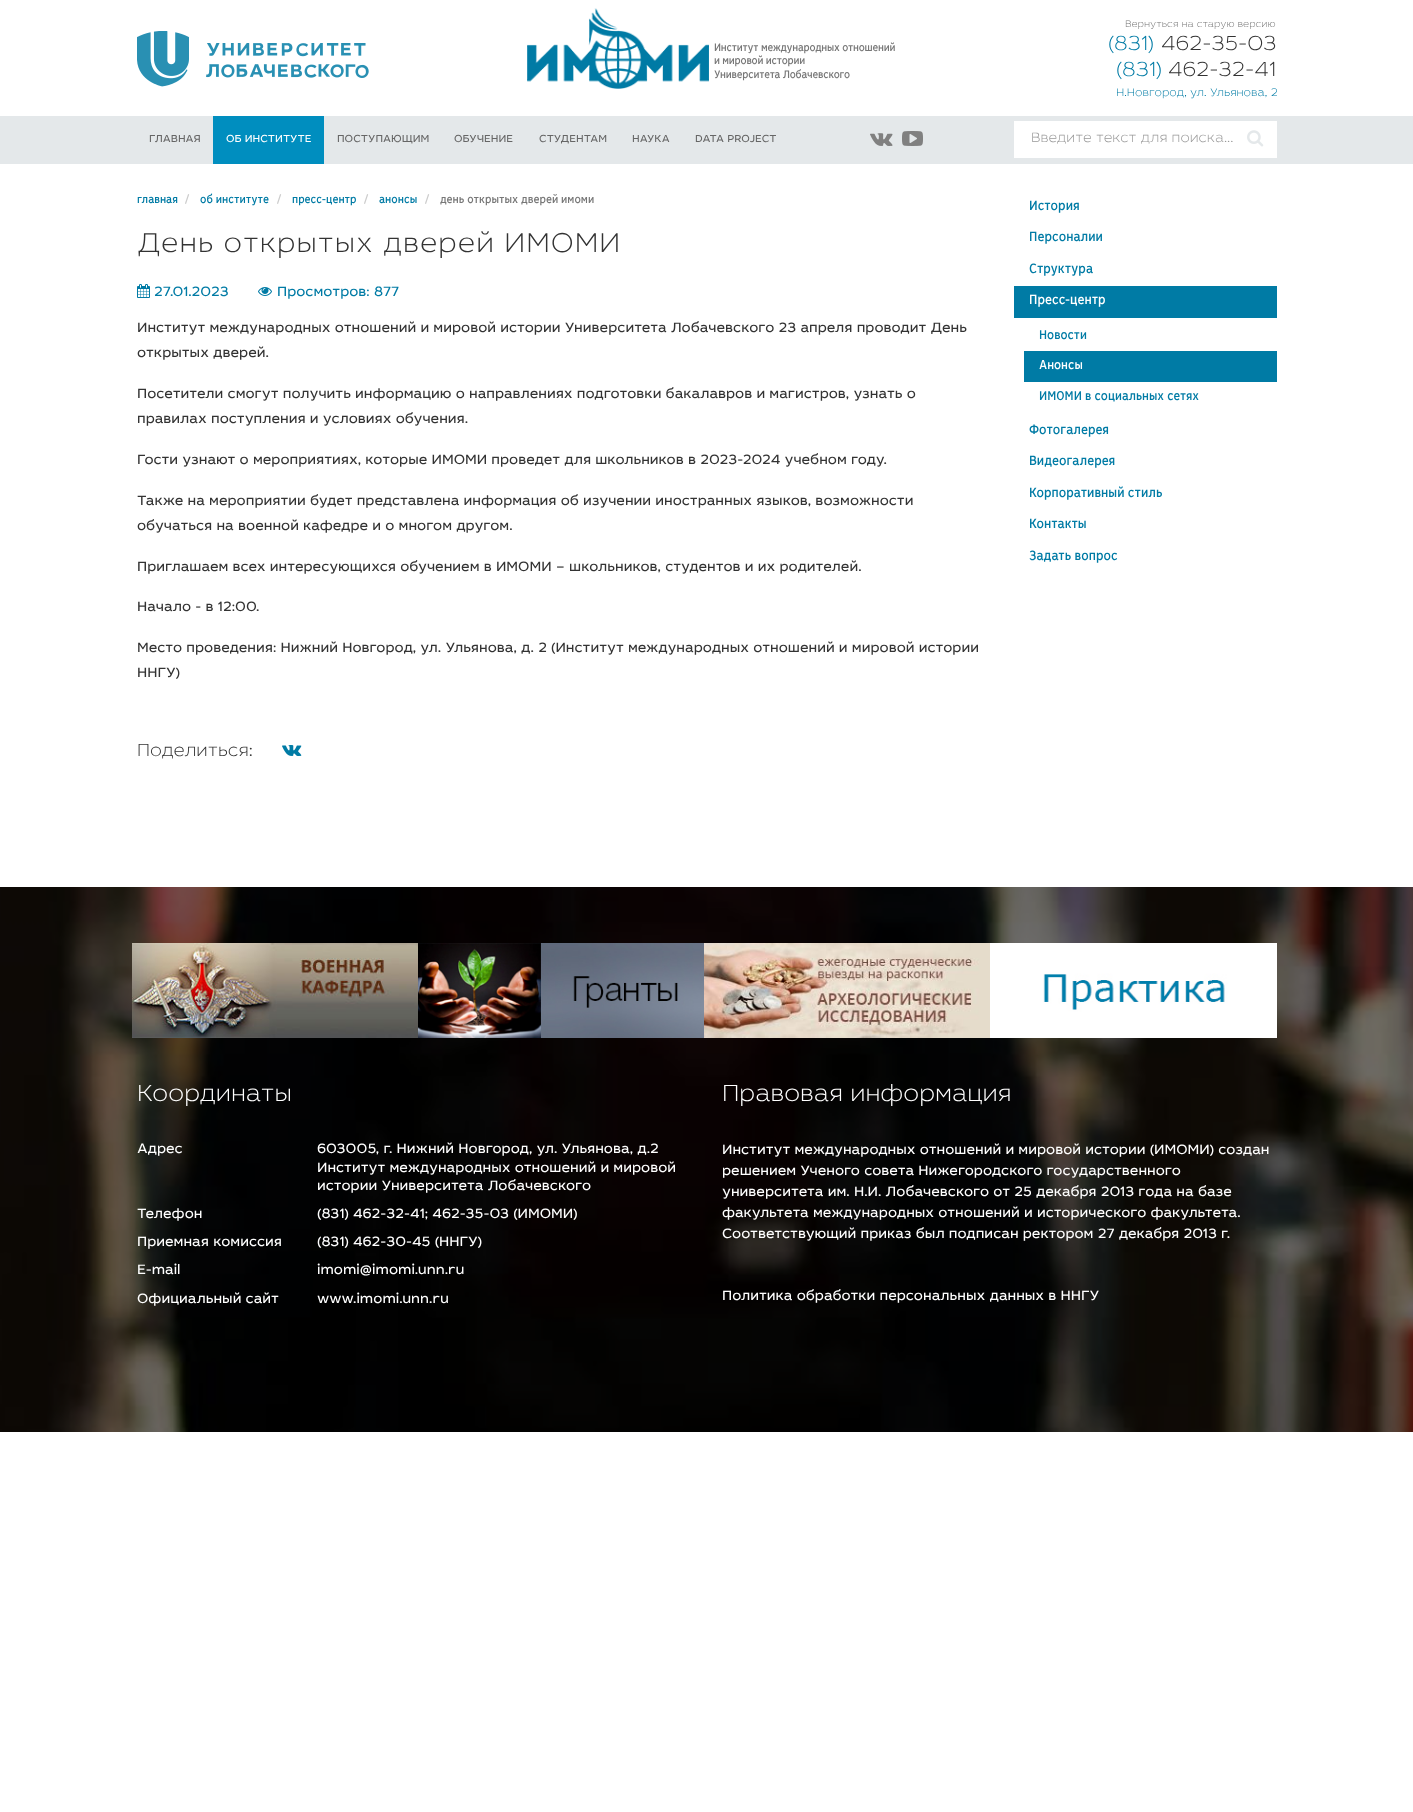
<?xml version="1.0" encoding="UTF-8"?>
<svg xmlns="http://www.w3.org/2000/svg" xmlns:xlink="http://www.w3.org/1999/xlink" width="1413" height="1812">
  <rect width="100%" height="100%" fill="#ffffff" />
  <image x="137" y="31" width="232" height="56" xlink:href="image1.png" />
  <image x="527" y="8" width="182" height="81" xlink:href="image2.png" />
  <rect y="116" width="1413" height="48" fill="#e4e8ea" />
  <rect x="213" y="116" width="111" height="48" fill="#008ebf" />
  <image x="870" y="133" width="23" height="13" xlink:href="image3.png" />
  <image x="902" y="131" width="21" height="15" xlink:href="image4.png" />
  <rect x="1014" y="121" width="263" height="37" fill="#ffffff" />
  <image x="1247" y="130" width="17" height="17" xlink:href="image5.png" />
  <image x="137" y="284" width="13" height="14" xlink:href="image6.png" />
  <image x="258" y="287" width="14" height="9" xlink:href="image7.png" />
  <image x="282" y="745" width="20" height="11" xlink:href="image8.png" />
  <rect x="1014" y="286" width="263" height="32" fill="#007ba5" />
  <rect x="1024" y="351" width="253" height="31" fill="#007ba5" />
  <image x="0" y="887" width="1413" height="545" xlink:href="image9.png" />
  <image x="132" y="943" width="286" height="95" xlink:href="image10.png" />
  <image x="418" y="943" width="286" height="95" xlink:href="image11.png" />
  <image x="704" y="943" width="286" height="95" xlink:href="image12.png" />
  <image x="990" y="943" width="287" height="95" xlink:href="image13.png" />
  <text x="714" y="51" style="font-family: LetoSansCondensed; font-size: 11.4px; letter-spacing: -0.2px; fill: #777777">Институт международных отношений</text>
  <text x="714" y="64" style="font-family: LetoSansCondensed; font-size: 11.4px; letter-spacing: -0.2px; fill: #777777">и мировой истории</text>
  <text x="714" y="78" style="font-family: LetoSansCondensed; font-size: 11.4px; letter-spacing: -0.2px; fill: #777777">Университета Лобачевского</text>
  <text x="1125" y="27" style="font-family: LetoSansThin; font-size: 9.75px; font-weight: 100; fill: #777777">Вернуться на старую версию</text>
  <text x="1108" y="50" style="font-family: LetoSansThin; font-size: 21px; font-weight: 100; fill: #007ba5">(831)</text>
  <text x="1161" y="50" style="font-family: LetoSansThin; font-size: 21px; font-weight: 100; fill: #333333">462-35-03</text>
  <text x="1116" y="76" style="font-family: LetoSansThin; font-size: 21px; font-weight: 100; fill: #007ba5">(831)</text>
  <text x="1168" y="76" style="font-family: LetoSansThin; font-size: 21px; font-weight: 100; fill: #333333">462-32-41</text>
  <text x="1116" y="96" style="font-family: LetoSansThin; font-size: 11.25px; font-weight: 100; fill: #007ba5">Н.Новгород, ул. Ульянова, 2</text>
  <text x="149" y="142" style="font-family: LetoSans; font-size: 10.5px; fill: #666666">ГЛАВНАЯ</text>
  <text x="226" y="142" style="font-family: LetoSans; font-size: 10.5px; fill: #ffffff">ОБ ИНСТИТУТЕ</text>
  <text x="337" y="142" style="font-family: LetoSans; font-size: 10.5px; fill: #666666">ПОСТУПАЮЩИМ</text>
  <text x="454" y="142" style="font-family: LetoSans; font-size: 10.5px; fill: #666666">ОБУЧЕНИЕ</text>
  <text x="539" y="142" style="font-family: LetoSans; font-size: 10.5px; fill: #666666">СТУДЕНТАМ</text>
  <text x="632" y="142" style="font-family: LetoSans; font-size: 10.5px; fill: #666666">НАУКА</text>
  <text x="695" y="142" style="font-family: LetoSans; font-size: 10.5px; fill: #666666">DATA PROJECT</text>
  <text x="1031" y="142" style="font-family: LetoSansThin; font-size: 14px; font-weight: 100; fill: #999999">Введите текст для поиска...</text>
  <text x="137" y="203" style="font-family: LetoSansCondensed; font-size: 12px; fill: #007ba5">главная</text>
  <text x="185" y="203" style="font-family: LetoSansCondensed; font-size: 12px; fill: #cccccc">/</text>
  <text x="200" y="203" style="font-family: LetoSansCondensed; font-size: 12px; fill: #007ba5">об институте</text>
  <text x="277" y="203" style="font-family: LetoSansCondensed; font-size: 12px; fill: #cccccc">/</text>
  <text x="292" y="203" style="font-family: LetoSansCondensed; font-size: 12px; fill: #007ba5">пресс-центр</text>
  <text x="364" y="203" style="font-family: LetoSansCondensed; font-size: 12px; fill: #cccccc">/</text>
  <text x="379" y="203" style="font-family: LetoSansCondensed; font-size: 12px; fill: #007ba5">анонсы</text>
  <text x="425" y="203" style="font-family: LetoSansCondensed; font-size: 12px; fill: #cccccc">/</text>
  <text x="440" y="203" style="font-family: LetoSansCondensed; font-size: 12px; fill: #777777">день открытых дверей имоми</text>
  <text x="137" y="252" style="font-family: LetoSansThin; font-size: 28px; font-weight: 100; letter-spacing: 1px; fill: #333333">День открытых дверей ИМОМИ</text>
  <text x="154" y="296" style="font-family: LetoSans; font-size: 14px; fill: #007ba5">27.01.2023</text>
  <text x="277" y="296" style="font-family: LetoSans; font-size: 14px; fill: #007ba5">Просмотров: 877</text>
  <text x="137" y="332" style="font-family: LetoSans; font-size: 14px; fill: #333333">Институт международных отношений и мировой истории Университета Лобачевского 23 апреля проводит День</text>
  <text x="137" y="357" style="font-family: LetoSans; font-size: 14px; fill: #333333">открытых дверей.</text>
  <text x="137" y="398" style="font-family: LetoSans; font-size: 14px; fill: #333333">Посетители смогут получить информацию о направлениях подготовки бакалавров и магистров, узнать о</text>
  <text x="137" y="423" style="font-family: LetoSans; font-size: 14px; fill: #333333">правилах поступления и условиях обучения.</text>
  <text x="137" y="464" style="font-family: LetoSans; font-size: 14px; fill: #333333">Гости узнают о мероприятиях, которые ИМОМИ проведет для школьников в 2023-2024 учебном году.</text>
  <text x="137" y="505" style="font-family: LetoSans; font-size: 14px; fill: #333333">Также на мероприятии будет представлена информация об изучении иностранных языков, возможности</text>
  <text x="137" y="530" style="font-family: LetoSans; font-size: 14px; fill: #333333">обучаться на военной кафедре и о многом другом.</text>
  <text x="137" y="571" style="font-family: LetoSans; font-size: 14px; fill: #333333">Приглашаем всех интересующихся обучением в ИМОМИ – школьников, студентов и их родителей.</text>
  <text x="137" y="611" style="font-family: LetoSans; font-size: 14px; fill: #333333">Начало - в 12:00.</text>
  <text x="137" y="652" style="font-family: LetoSans; font-size: 14px; fill: #333333">Место проведения: Нижний Новгород, ул. Ульянова, д. 2 (Институт международных отношений и мировой истории</text>
  <text x="137" y="677" style="font-family: LetoSans; font-size: 14px; fill: #333333">ННГУ)</text>
  <text x="137" y="756" style="font-family: LetoSansThin; font-size: 18px; font-weight: 100; fill: #333333">Поделиться:</text>
  <text x="1029" y="210" style="font-family: LetoSansCondensed; font-size: 14px; fill: #007ba5">История</text>
  <text x="1029" y="241" style="font-family: LetoSansCondensed; font-size: 14px; fill: #007ba5">Персоналии</text>
  <text x="1029" y="273" style="font-family: LetoSansCondensed; font-size: 14px; fill: #007ba5">Структура</text>
  <text x="1029" y="304" style="font-family: LetoSansCondensed; font-size: 14px; fill: #ffffff">Пресс-центр</text>
  <text x="1039" y="339" style="font-family: LetoSansCondensed; font-size: 13.25px; fill: #007ba5">Новости</text>
  <text x="1039" y="369" style="font-family: LetoSansCondensed; font-size: 13.25px; fill: #ffffff">Анонсы</text>
  <text x="1039" y="400" style="font-family: LetoSansCondensed; font-size: 13.25px; fill: #007ba5">ИМОМИ в социальных сетях</text>
  <text x="1029" y="434" style="font-family: LetoSansCondensed; font-size: 14px; fill: #007ba5">Фотогалерея</text>
  <text x="1029" y="465" style="font-family: LetoSansCondensed; font-size: 14px; fill: #007ba5">Видеогалерея</text>
  <text x="1029" y="497" style="font-family: LetoSansCondensed; font-size: 14px; fill: #007ba5">Корпоративный стиль</text>
  <text x="1029" y="528" style="font-family: LetoSansCondensed; font-size: 14px; fill: #007ba5">Контакты</text>
  <text x="1029" y="560" style="font-family: LetoSansCondensed; font-size: 14px; fill: #007ba5">Задать вопрос</text>
  <text x="137" y="1101" style="font-family: LetoSansThin; font-size: 24px; font-weight: 100; fill: #ffffff">Координаты</text>
  <text x="137" y="1153" style="font-family: LetoSans; font-size: 14px; fill: #ffffff">Адрес</text>
  <text x="317" y="1153" style="font-family: LetoSans; font-size: 14px; fill: #ffffff">603005, г. Нижний Новгород, ул. Ульянова, д.2</text>
  <text x="317" y="1172" style="font-family: LetoSans; font-size: 14px; fill: #ffffff">Институт международных отношений и мировой</text>
  <text x="317" y="1190" style="font-family: LetoSans; font-size: 14px; fill: #ffffff">истории Университета Лобачевского</text>
  <text x="137" y="1218" style="font-family: LetoSans; font-size: 14px; fill: #ffffff">Телефон</text>
  <text x="317" y="1218" style="font-family: LetoSans; font-size: 14px; fill: #ffffff">(831) 462-32-41; 462-35-03 (ИМОМИ)</text>
  <text x="137" y="1246" style="font-family: LetoSans; font-size: 14px; fill: #ffffff">Приемная комиссия</text>
  <text x="317" y="1246" style="font-family: LetoSans; font-size: 14px; fill: #ffffff">(831) 462-30-45 (ННГУ)</text>
  <text x="137" y="1274" style="font-family: LetoSans; font-size: 14px; fill: #ffffff">E-mail</text>
  <text x="317" y="1274" style="font-family: LetoSans; font-size: 14px; fill: #ffffff">imomi@imomi.unn.ru</text>
  <text x="137" y="1303" style="font-family: LetoSans; font-size: 14px; fill: #ffffff">Официальный сайт</text>
  <text x="317" y="1303" style="font-family: LetoSans; font-size: 14px; fill: #ffffff">www.imomi.unn.ru</text>
  <text x="722" y="1101" style="font-family: LetoSansThin; font-size: 24px; font-weight: 100; fill: #ffffff">Правовая информация</text>
  <text x="722" y="1154" style="font-family: LetoSans; font-size: 14px; fill: #ffffff">Институт международных отношений и мировой истории (ИМОМИ) создан</text>
  <text x="722" y="1175" style="font-family: LetoSans; font-size: 14px; fill: #ffffff">решением Ученого совета Нижегородского государственного</text>
  <text x="722" y="1196" style="font-family: LetoSans; font-size: 14px; fill: #ffffff">университета им. Н.И. Лобачевского от 25 декабря 2013 года на базе</text>
  <text x="722" y="1217" style="font-family: LetoSans; font-size: 14px; fill: #ffffff">факультета международных отношений и исторического факультета.</text>
  <text x="722" y="1238" style="font-family: LetoSans; font-size: 14px; fill: #ffffff">Соответствующий приказ был подписан ректором 27 декабря 2013 г.</text>
  <text x="722" y="1300" style="font-family: LetoSans; font-size: 14px; fill: #ffffff">Политика обработки персональных данных в ННГУ</text>
</svg>
